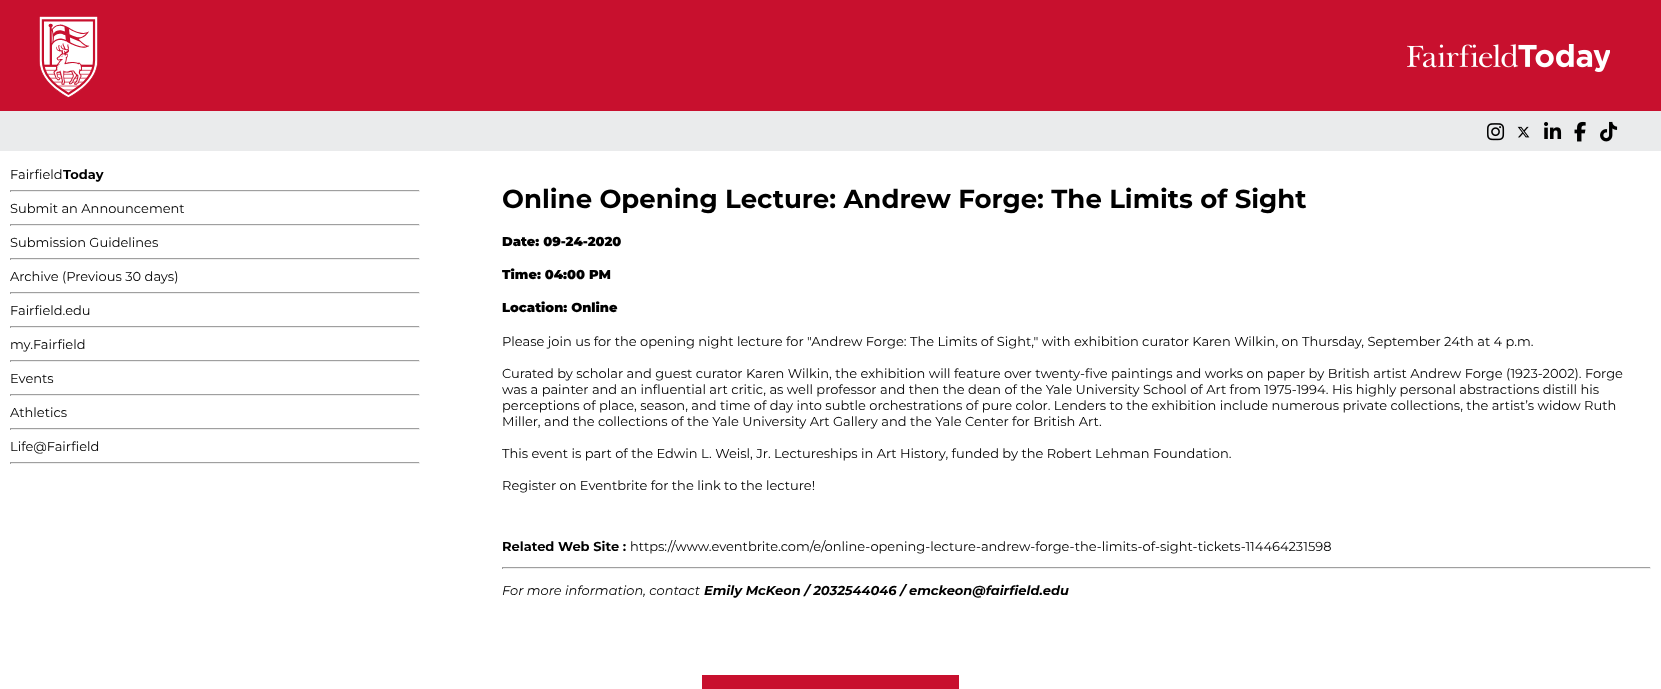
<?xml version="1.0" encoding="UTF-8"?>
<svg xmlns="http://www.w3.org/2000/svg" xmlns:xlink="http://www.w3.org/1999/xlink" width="1661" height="689">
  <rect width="100%" height="100%" fill="#ffffff" />
  <rect width="1661" height="111" fill="#c8102e" />
  <image x="39" y="16" width="59" height="82" xlink:href="image1.png" />
  <image x="1407" y="44" width="203" height="28" xlink:href="image2.png" />
  <rect y="111" width="1661" height="40" fill="#eaebec" />
  <image x="1487" y="123" width="18" height="18" xlink:href="image3.png" />
  <image x="1517" y="126" width="13" height="12" xlink:href="image4.png" />
  <image x="1544" y="122" width="18" height="17" xlink:href="image5.png" />
  <image x="1574" y="121" width="12" height="21" xlink:href="image6.png" />
  <image x="1600" y="121" width="18" height="21" xlink:href="image7.png" />
  <rect x="10" y="190" width="410" height="1" fill="#9f9f9f" />
  <rect x="419" y="190" width="1" height="2" fill="#eeeeee" />
  <rect x="10" y="191" width="410" height="1" fill="#eeeeee" />
  <rect x="10" y="190" width="1" height="2" fill="#9f9f9f" />
  <rect x="10" y="224" width="410" height="1" fill="#9f9f9f" />
  <rect x="419" y="224" width="1" height="2" fill="#eeeeee" />
  <rect x="10" y="225" width="410" height="1" fill="#eeeeee" />
  <rect x="10" y="224" width="1" height="2" fill="#9f9f9f" />
  <rect x="10" y="258" width="410" height="1" fill="#9f9f9f" />
  <rect x="419" y="258" width="1" height="2" fill="#eeeeee" />
  <rect x="10" y="259" width="410" height="1" fill="#eeeeee" />
  <rect x="10" y="258" width="1" height="2" fill="#9f9f9f" />
  <rect x="10" y="292" width="410" height="1" fill="#9f9f9f" />
  <rect x="419" y="292" width="1" height="2" fill="#eeeeee" />
  <rect x="10" y="293" width="410" height="1" fill="#eeeeee" />
  <rect x="10" y="292" width="1" height="2" fill="#9f9f9f" />
  <rect x="10" y="326" width="410" height="1" fill="#9f9f9f" />
  <rect x="419" y="326" width="1" height="2" fill="#eeeeee" />
  <rect x="10" y="327" width="410" height="1" fill="#eeeeee" />
  <rect x="10" y="326" width="1" height="2" fill="#9f9f9f" />
  <rect x="10" y="360" width="410" height="1" fill="#9f9f9f" />
  <rect x="419" y="360" width="1" height="2" fill="#eeeeee" />
  <rect x="10" y="361" width="410" height="1" fill="#eeeeee" />
  <rect x="10" y="360" width="1" height="2" fill="#9f9f9f" />
  <rect x="10" y="394" width="410" height="1" fill="#9f9f9f" />
  <rect x="419" y="394" width="1" height="2" fill="#eeeeee" />
  <rect x="10" y="395" width="410" height="1" fill="#eeeeee" />
  <rect x="10" y="394" width="1" height="2" fill="#9f9f9f" />
  <rect x="10" y="428" width="410" height="1" fill="#9f9f9f" />
  <rect x="419" y="428" width="1" height="2" fill="#eeeeee" />
  <rect x="10" y="429" width="410" height="1" fill="#eeeeee" />
  <rect x="10" y="428" width="1" height="2" fill="#9f9f9f" />
  <rect x="10" y="462" width="410" height="1" fill="#9f9f9f" />
  <rect x="419" y="462" width="1" height="2" fill="#eeeeee" />
  <rect x="10" y="463" width="410" height="1" fill="#eeeeee" />
  <rect x="10" y="462" width="1" height="2" fill="#9f9f9f" />
  <rect x="502" y="567" width="1149" height="1" fill="#9f9f9f" />
  <rect x="1650" y="567" width="1" height="2" fill="#eeeeee" />
  <rect x="502" y="568" width="1149" height="1" fill="#eeeeee" />
  <rect x="502" y="567" width="1" height="2" fill="#9f9f9f" />
  <rect x="702" y="675" width="257" height="14" fill="#c8102e" />
  <text x="10" y="179" style="font-family: Montserrat; font-size: 13px; fill: #000000">Fairfield</text>
  <text x="63" y="179" style="font-family: Montserrat; font-size: 13px; font-weight: bold; fill: #000000">Today</text>
  <text x="10" y="213" style="font-family: Montserrat; font-size: 13px; fill: #000000">Submit an Announcement</text>
  <text x="10" y="247" style="font-family: Montserrat; font-size: 13px; fill: #000000">Submission Guidelines</text>
  <text x="10" y="281" style="font-family: Montserrat; font-size: 13px; fill: #000000">Archive (Previous 30 days)</text>
  <text x="10" y="315" style="font-family: Montserrat; font-size: 13px; fill: #000000">Fairfield.edu</text>
  <text x="10" y="349" style="font-family: Montserrat; font-size: 13px; fill: #000000">my.Fairfield</text>
  <text x="10" y="383" style="font-family: Montserrat; font-size: 13px; fill: #000000">Events</text>
  <text x="10" y="417" style="font-family: Montserrat; font-size: 13px; fill: #000000">Athletics</text>
  <text x="10" y="451" style="font-family: Montserrat; font-size: 13px; fill: #000000">Life@Fairfield</text>
  <text x="502" y="208" style="font-family: Montserrat; font-size: 26px; font-weight: bold; fill: #000000">Online Opening Lecture: Andrew Forge: The Limits of Sight</text>
  <text x="502" y="246" style="font-family: Montserrat; font-size: 13px; font-weight: 900; fill: #000000">Date: 09-24-2020</text>
  <text x="502" y="279" style="font-family: Montserrat; font-size: 13px; font-weight: 900; fill: #000000">Time: 04:00 PM</text>
  <text x="502" y="312" style="font-family: Montserrat; font-size: 13px; font-weight: 900; fill: #000000">Location: Online</text>
  <text x="502" y="346" style="font-family: Montserrat; font-size: 13px; fill: #000000">Please join us for the opening night lecture for "Andrew Forge: The Limits of Sight," with exhibition curator Karen Wilkin, on Thursday, September 24th at 4 p.m.</text>
  <text x="502" y="378" style="font-family: Montserrat; font-size: 13px; fill: #000000">Curated by scholar and guest curator Karen Wilkin, the exhibition will feature over twenty-five paintings and works on paper by British artist Andrew Forge (1923-2002). Forge</text>
  <text x="502" y="394" style="font-family: Montserrat; font-size: 13px; fill: #000000">was a painter and an influential art critic, as well professor and then the dean of the Yale University School of Art from 1975-1994. His highly personal abstractions distill his</text>
  <text x="502" y="410" style="font-family: Montserrat; font-size: 13px; fill: #000000">perceptions of place, season, and time of day into subtle orchestrations of pure color. Lenders to the exhibition include numerous private collections, the artist’s widow Ruth</text>
  <text x="502" y="426" style="font-family: Montserrat; font-size: 13px; fill: #000000">Miller, and the collections of the Yale University Art Gallery and the Yale Center for British Art.</text>
  <text x="502" y="458" style="font-family: Montserrat; font-size: 13px; fill: #000000">This event is part of the Edwin L. Weisl, Jr. Lectureships in Art History, funded by the Robert Lehman Foundation.</text>
  <text x="502" y="490" style="font-family: Montserrat; font-size: 13px; fill: #000000">Register on Eventbrite for the link to the lecture!</text>
  <text x="502" y="551" style="font-family: Montserrat; font-size: 13px; font-weight: bold; fill: #000000">Related Web Site :</text>
  <text x="630" y="551" style="font-family: Montserrat; font-size: 13px; fill: #000000">https://www.eventbrite.com/e/online-opening-lecture-andrew-forge-the-limits-of-sight-tickets-114464231598</text>
  <text x="502" y="595" style="font-family: Montserrat; font-size: 13px; font-style: italic; fill: #000000">For more information, contact</text>
  <text x="704" y="595" style="font-family: Montserrat; font-size: 13px; font-weight: bold; font-style: italic; fill: #000000">Emily McKeon / 2032544046 / emckeon@fairfield.edu</text>
</svg>
